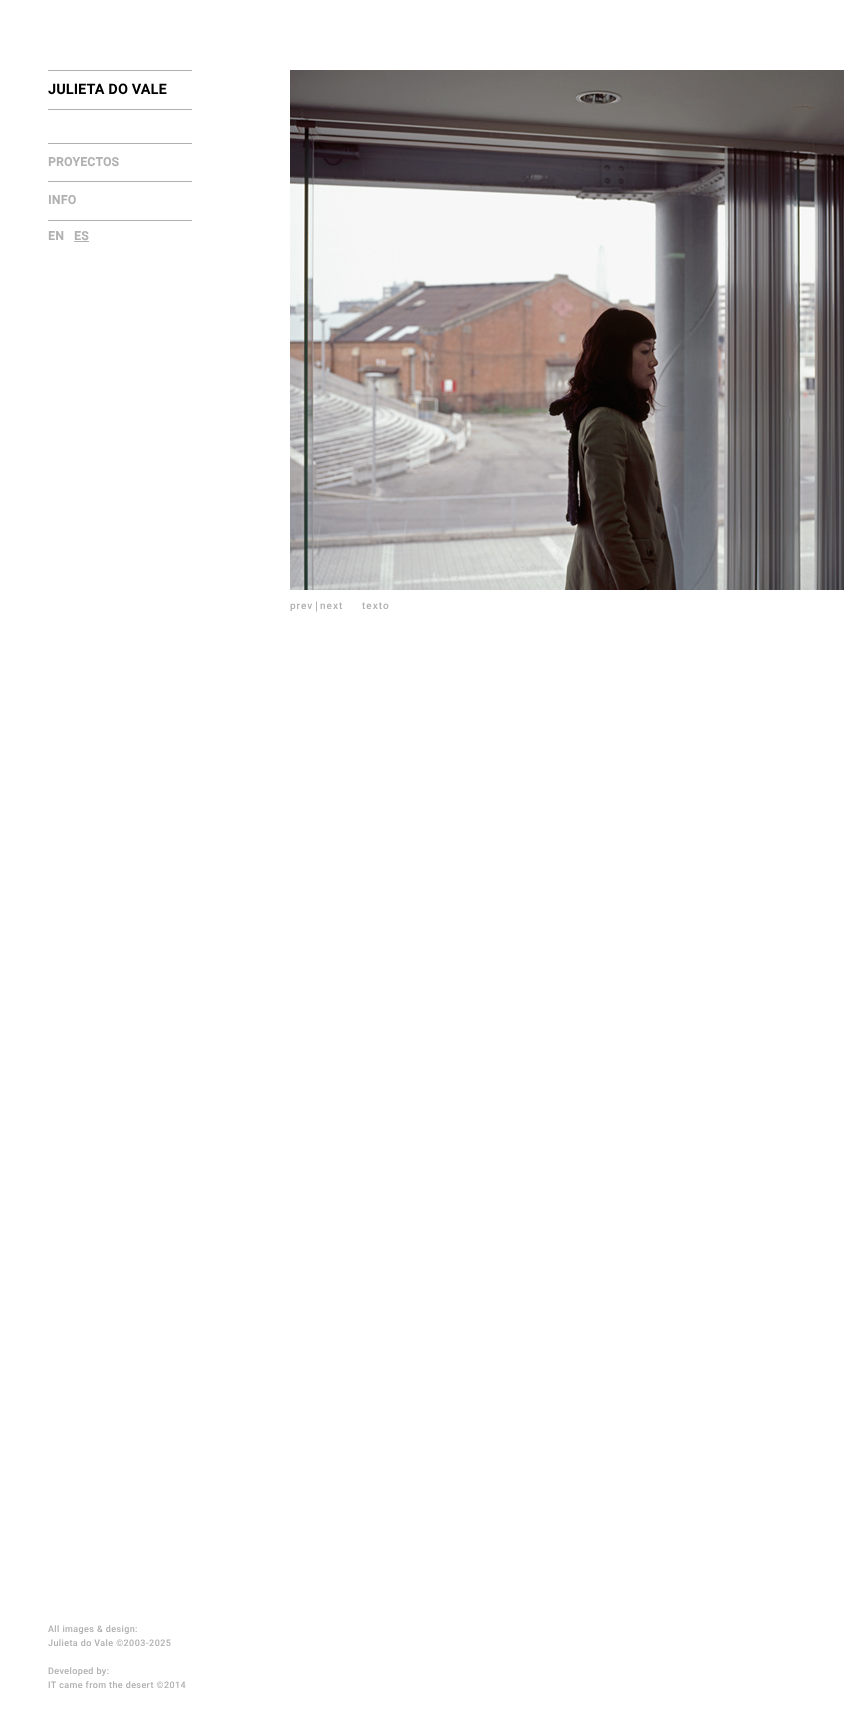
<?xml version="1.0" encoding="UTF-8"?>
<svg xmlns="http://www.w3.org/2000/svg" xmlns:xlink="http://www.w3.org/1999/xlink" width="844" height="1712">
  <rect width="100%" height="100%" fill="#ffffff" />
  <rect x="48" y="70" width="144" height="1" fill="#b0b0b0" />
  <rect x="48" y="109" width="144" height="1" fill="#b0b0b0" />
  <rect x="48" y="143" width="144" height="1" fill="#b0b0b0" />
  <rect x="48" y="220" width="144" height="1" fill="#b0b0b0" />
  <rect x="48" y="181" width="144" height="1" fill="#b0b0b0" />
  <rect x="74" y="241" width="15" height="1" fill="#b0b0b0" />
  <image x="290" y="70" width="554" height="520" xlink:href="image1.png" />
  <text x="48" y="94" style="font-family: Roboto; font-size: 14px; font-weight: bold; letter-spacing: 0.4px; fill: #000000">JULIETA DO VALE</text>
  <text x="48" y="166" style="font-family: Roboto; font-size: 12px; font-weight: bold; letter-spacing: 0.4px; fill: #b0b0b0">PROYECTOS</text>
  <text x="48" y="204" style="font-family: Roboto; font-size: 12px; font-weight: bold; letter-spacing: 0.4px; fill: #b0b0b0">INFO</text>
  <text x="48" y="240" style="font-family: Roboto; font-size: 12px; font-weight: bold; letter-spacing: 0.4px; fill: #b0b0b0">EN</text>
  <text x="74" y="240" style="font-family: Roboto; font-size: 12px; font-weight: bold; letter-spacing: 0.4px; fill: #b0b0b0">ES</text>
  <text x="290" y="609" style="font-family: Roboto; font-size: 10px; font-weight: 500; letter-spacing: 1px; fill: #b0b0b0">prev</text>
  <text x="315" y="610" style="font-family: Roboto; font-size: 12px; font-weight: 500; letter-spacing: 0.4px; fill: #b0b0b0">|</text>
  <text x="320" y="609" style="font-family: Roboto; font-size: 10px; font-weight: 500; letter-spacing: 1px; fill: #b0b0b0">next</text>
  <text x="362" y="609" style="font-family: Roboto; font-size: 10px; font-weight: 500; letter-spacing: 1px; fill: #b0b0b0">texto</text>
  <text x="48" y="1632" style="font-family: Roboto; font-size: 9px; font-weight: 500; letter-spacing: 0.4px; fill: #b0b0b0">All images &amp; design:</text>
  <text x="48" y="1646" style="font-family: Roboto; font-size: 9px; font-weight: 500; letter-spacing: 0.4px; fill: #b0b0b0">Julieta do Vale ©2003-2025</text>
  <text x="48" y="1674" style="font-family: Roboto; font-size: 9px; font-weight: 500; letter-spacing: 0.4px; fill: #b0b0b0">Developed by:</text>
  <text x="48" y="1688" style="font-family: Roboto; font-size: 9px; font-weight: 500; letter-spacing: 0.4px; fill: #b0b0b0">IT came from the desert ©2014</text>
</svg>
